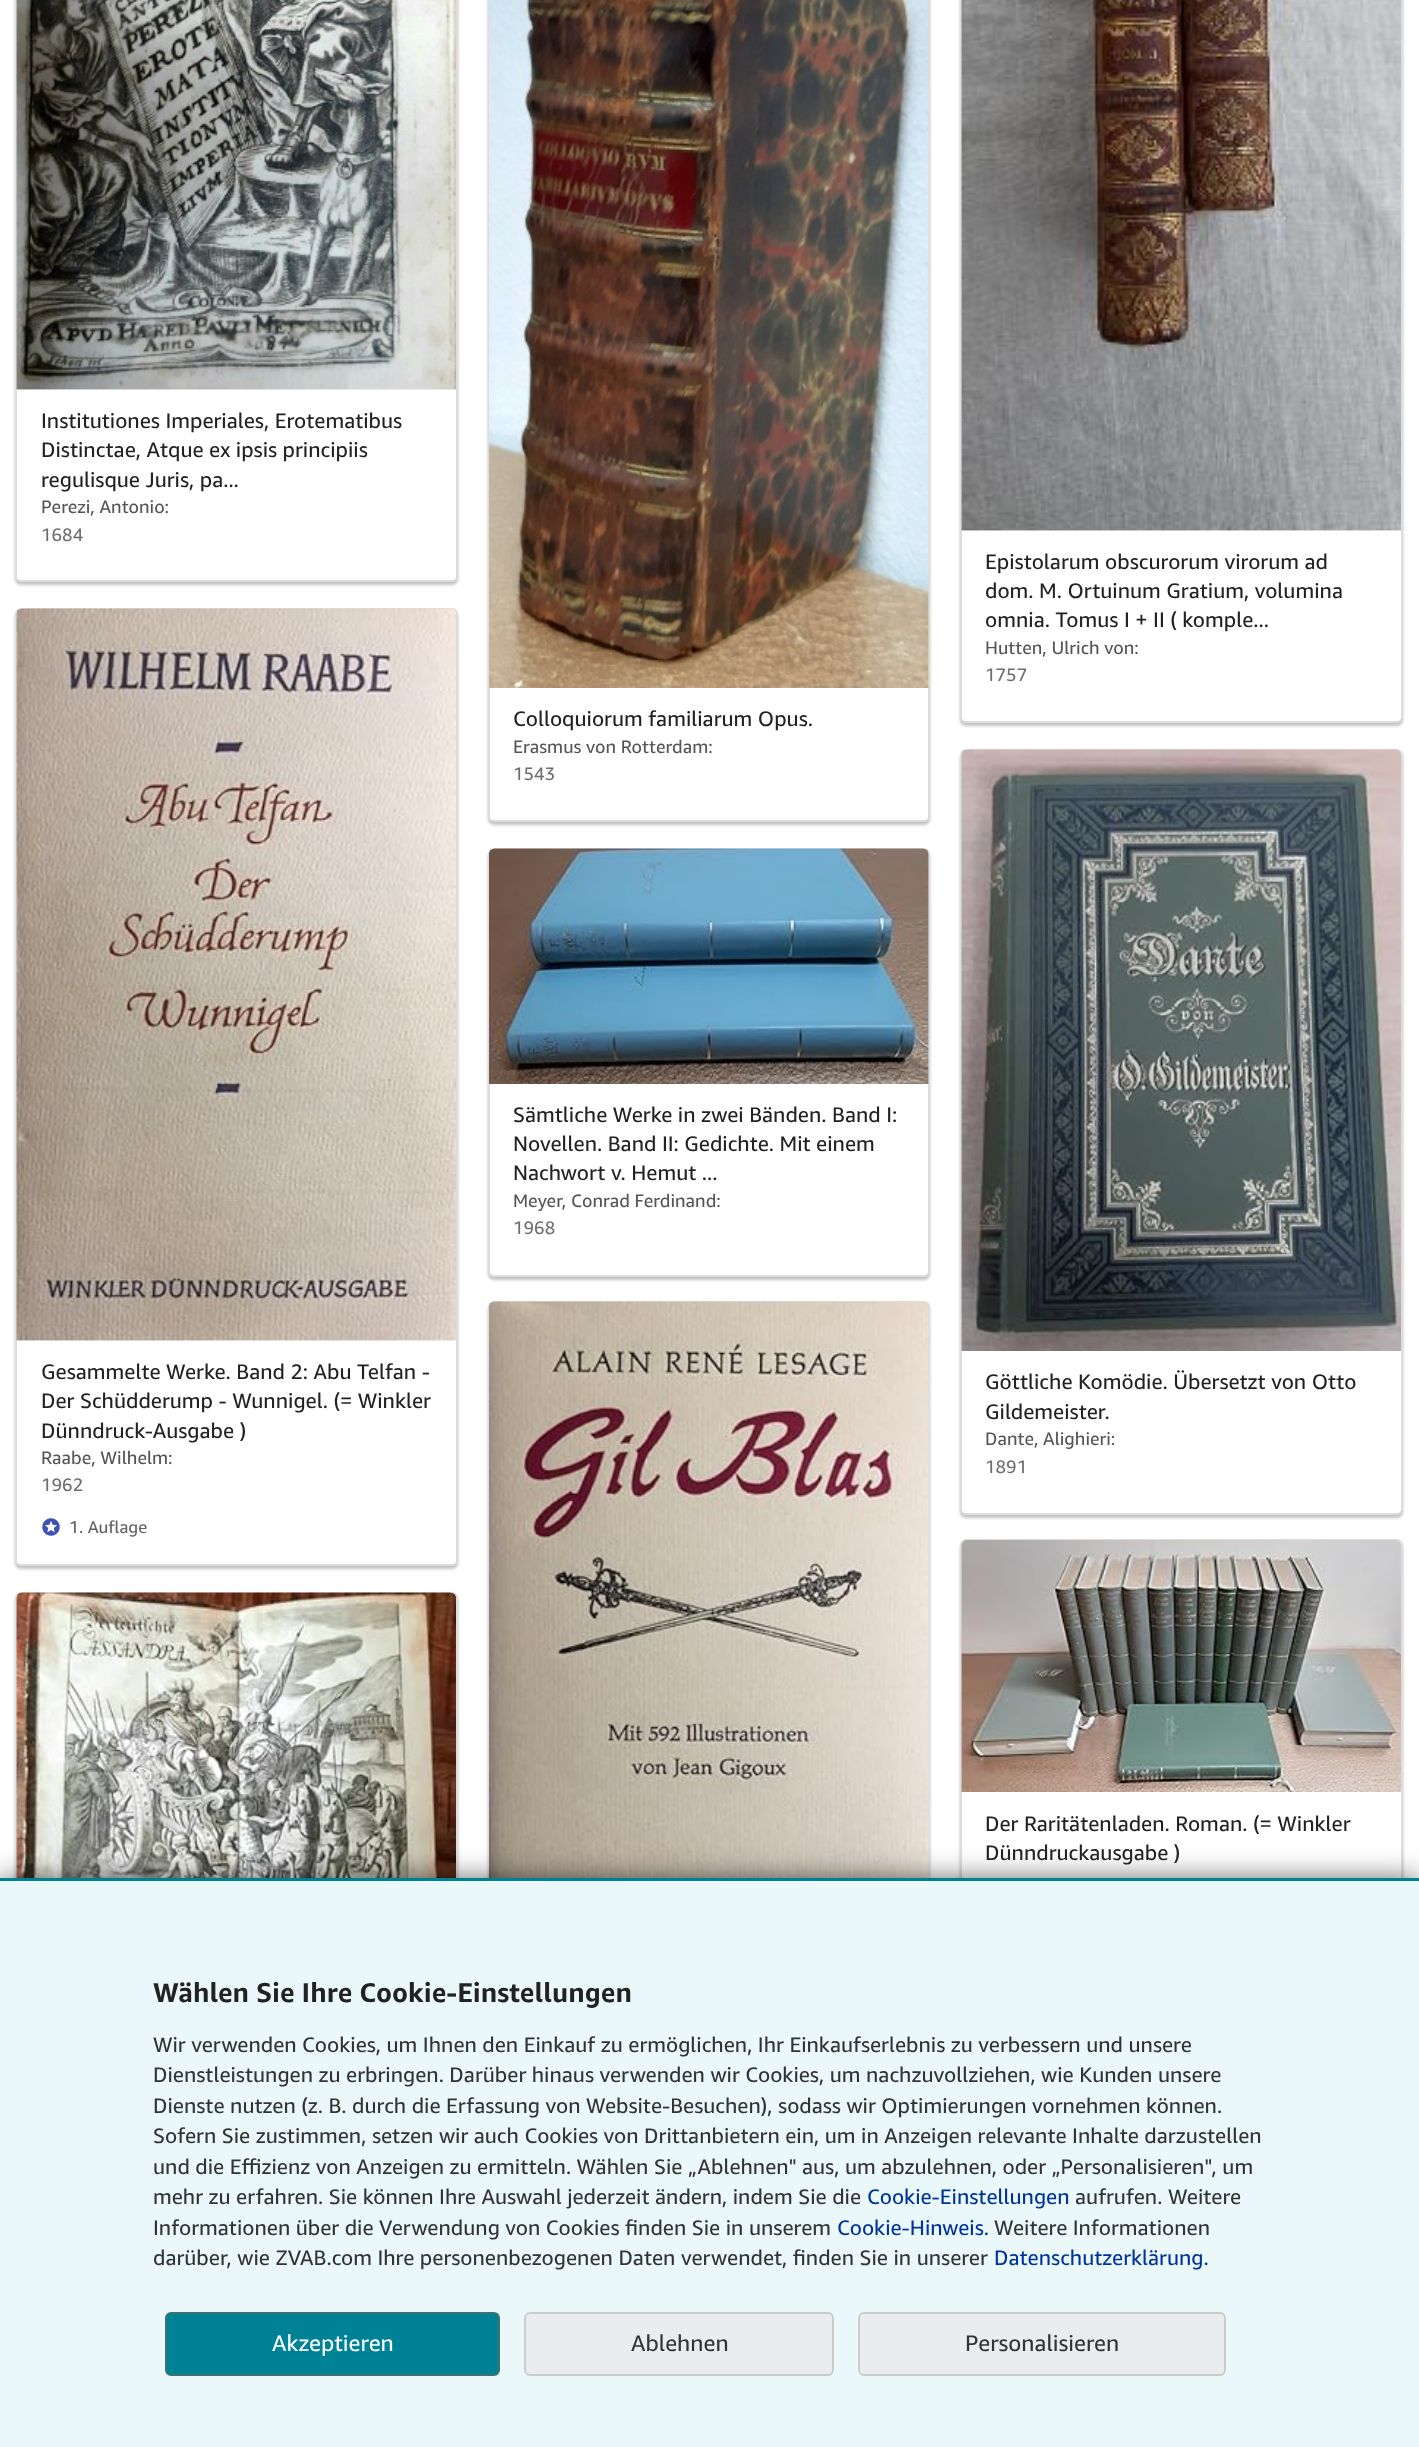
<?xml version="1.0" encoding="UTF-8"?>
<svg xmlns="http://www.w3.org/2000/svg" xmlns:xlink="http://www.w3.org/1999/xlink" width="1419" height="2447">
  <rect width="100%" height="100%" fill="#ffffff" />
  <rect x="15" y="-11" width="443" height="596" rx="6" fill="#000000" fill-opacity="0.24" filter="blur(1.5px)" />
  <rect x="16" y="-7" width="441" height="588" rx="5" fill="#ffffff" stroke="#dddddd" stroke-width="2" />
  <image x="16" y="0" width="440" height="390" xlink:href="image1.png" />
  <image x="16" y="0" width="440" height="390" xlink:href="image2.png" />
  <rect x="960" y="-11" width="443" height="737" rx="6" fill="#000000" fill-opacity="0.24" filter="blur(1.5px)" />
  <rect x="961" y="-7" width="441" height="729" rx="5" fill="#ffffff" stroke="#dddddd" stroke-width="2" />
  <image x="961" y="0" width="440" height="531" xlink:href="image3.png" />
  <image x="961" y="0" width="440" height="531" xlink:href="image4.png" />
  <rect x="488" y="-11" width="442" height="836" rx="6" fill="#000000" fill-opacity="0.24" filter="blur(1.5px)" />
  <rect x="489" y="-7" width="440" height="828" rx="5" fill="#ffffff" stroke="#dddddd" stroke-width="2" />
  <image x="489" y="0" width="440" height="688" xlink:href="image5.png" />
  <image x="928" y="14" width="1" height="674" xlink:href="image6.png" />
  <rect x="488" y="851" width="442" height="429" rx="6" fill="#000000" fill-opacity="0.24" filter="blur(1.5px)" />
  <rect x="489" y="849" width="440" height="427" rx="5" fill="#ffffff" stroke="#dddddd" stroke-width="2" />
  <image x="489" y="848" width="440" height="236" xlink:href="image7.png" />
  <image x="489" y="848" width="440" height="236" xlink:href="image8.png" />
  <rect x="15" y="611" width="443" height="958" rx="6" fill="#000000" fill-opacity="0.24" filter="blur(1.5px)" />
  <rect x="16" y="609" width="441" height="956" rx="5" fill="#ffffff" stroke="#dddddd" stroke-width="2" />
  <image x="16" y="608" width="440" height="733" xlink:href="image9.png" />
  <image x="16" y="608" width="440" height="733" xlink:href="image10.png" />
  <image x="42" y="1518" width="18" height="18" xlink:href="image11.png" />
  <rect x="488" y="1304" width="442" height="897" rx="6" fill="#000000" fill-opacity="0.24" filter="blur(1.5px)" />
  <rect x="489" y="1302" width="440" height="895" rx="5" fill="none" stroke="#dddddd" stroke-width="2" />
  <image x="489" y="1301" width="440" height="577" xlink:href="image12.png" />
  <image x="489" y="1301" width="440" height="577" xlink:href="image13.png" />
  <rect x="960" y="752" width="443" height="766" rx="6" fill="#000000" fill-opacity="0.24" filter="blur(1.5px)" />
  <rect x="961" y="750" width="441" height="764" rx="5" fill="#ffffff" stroke="#dddddd" stroke-width="2" />
  <image x="961" y="749" width="440" height="602" xlink:href="image14.png" />
  <image x="961" y="749" width="440" height="602" xlink:href="image15.png" />
  <rect x="15" y="1595" width="443" height="564" rx="6" fill="#000000" fill-opacity="0.24" filter="blur(1.5px)" />
  <rect x="16" y="1593" width="441" height="562" rx="5" fill="none" stroke="#dddddd" stroke-width="2" />
  <image x="16" y="1592" width="440" height="286" xlink:href="image16.png" />
  <image x="16" y="1592" width="440" height="286" xlink:href="image17.png" />
  <rect x="960" y="1542" width="443" height="417" rx="6" fill="#000000" fill-opacity="0.24" filter="blur(1.5px)" />
  <rect x="961" y="1540" width="441" height="415" rx="5" fill="#ffffff" stroke="#dddddd" stroke-width="2" />
  <image x="961" y="1540" width="440" height="252" xlink:href="image18.png" />
  <image x="961" y="1540" width="440" height="252" xlink:href="image19.png" />
  <rect y="1881" width="1419" height="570" fill="#000000" fill-opacity="0.7" filter="blur(15px)" />
  <rect y="1881" width="1419" height="566" fill="#ebf8fa" />
  <rect y="1878" width="1419" height="3" fill="#008296" />
  <rect x="166" y="2313" width="333" height="62" rx="5" fill="#008296" stroke="#3d7178" stroke-width="2" />
  <rect x="525" y="2313" width="308" height="62" rx="5" fill="#eaeded" stroke="#cccccc" stroke-width="2" />
  <rect x="859" y="2313" width="366" height="62" rx="5" fill="#eaeded" stroke="#cccccc" stroke-width="2" />
  <text x="41" y="428" style="font-family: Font; font-size: 21px; fill: #222222">Institutiones Imperiales, Erotematibus</text>
  <text x="41" y="457" style="font-family: Font; font-size: 21px; fill: #222222">Distinctae, Atque ex ipsis principiis</text>
  <text x="41" y="487" style="font-family: Font; font-size: 21px; fill: #222222">regulisque Juris, pa...</text>
  <text x="41" y="513" style="font-family: Font; font-size: 18px; fill: #555555">Perezi, Antonio:</text>
  <text x="41" y="541" style="font-family: Font; font-size: 18px; fill: #6e6e6e">1684</text>
  <text x="985" y="569" style="font-family: Font; font-size: 21px; fill: #222222">Epistolarum obscurorum virorum ad</text>
  <text x="985" y="598" style="font-family: Font; font-size: 21px; fill: #222222">dom. M. Ortuinum Gratium, volumina</text>
  <text x="985" y="627" style="font-family: Font; font-size: 21px; fill: #222222">omnia. Tomus I + II ( komple...</text>
  <text x="985" y="654" style="font-family: Font; font-size: 18px; fill: #555555">Hutten, Ulrich von:</text>
  <text x="985" y="681" style="font-family: Font; font-size: 18px; fill: #6e6e6e">1757</text>
  <text x="513" y="726" style="font-family: Font; font-size: 21px; fill: #222222">Colloquiorum familiarum Opus.</text>
  <text x="513" y="753" style="font-family: Font; font-size: 18px; fill: #555555">Erasmus von Rotterdam:</text>
  <text x="513" y="780" style="font-family: Font; font-size: 18px; fill: #6e6e6e">1543</text>
  <text x="513" y="1122" style="font-family: Font; font-size: 21px; fill: #222222">Sämtliche Werke in zwei Bänden. Band I:</text>
  <text x="513" y="1151" style="font-family: Font; font-size: 21px; fill: #222222">Novellen. Band II: Gedichte. Mit einem</text>
  <text x="513" y="1180" style="font-family: Font; font-size: 21px; fill: #222222">Nachwort v. Hemut ...</text>
  <text x="513" y="1207" style="font-family: Font; font-size: 18px; fill: #555555">Meyer, Conrad Ferdinand:</text>
  <text x="513" y="1234" style="font-family: Font; font-size: 18px; fill: #6e6e6e">1968</text>
  <text x="41" y="1379" style="font-family: Font; font-size: 21px; fill: #222222">Gesammelte Werke. Band 2: Abu Telfan -</text>
  <text x="41" y="1408" style="font-family: Font; font-size: 21px; fill: #222222">Der Schüdderump - Wunnigel. (= Winkler</text>
  <text x="41" y="1438" style="font-family: Font; font-size: 21px; fill: #222222">Dünndruck-Ausgabe )</text>
  <text x="41" y="1464" style="font-family: Font; font-size: 18px; fill: #555555">Raabe, Wilhelm:</text>
  <text x="41" y="1491" style="font-family: Font; font-size: 18px; fill: #6e6e6e">1962</text>
  <text x="69" y="1533" style="font-family: Font; font-size: 17px; fill: #626262">1. Auflage</text>
  <text x="985" y="1389" style="font-family: Font; font-size: 21px; fill: #222222">Göttliche Komödie. Übersetzt von Otto</text>
  <text x="985" y="1419" style="font-family: Font; font-size: 21px; fill: #222222">Gildemeister.</text>
  <text x="985" y="1445" style="font-family: Font; font-size: 18px; fill: #555555">Dante, Alighieri:</text>
  <text x="985" y="1473" style="font-family: Font; font-size: 18px; fill: #6e6e6e">1891</text>
  <text x="985" y="1831" style="font-family: Font; font-size: 21px; fill: #222222">Der Raritätenladen. Roman. (= Winkler</text>
  <text x="985" y="1860" style="font-family: Font; font-size: 21px; fill: #222222">Dünndruckausgabe )</text>
  <text x="153" y="2002" style="font-family: Font; font-size: 27px; font-weight: bold; fill: #222222">Wählen Sie Ihre Cookie-Einstellungen</text>
  <text x="153" y="2052" style="font-family: Font; font-size: 21px; fill: #333333">Wir verwenden Cookies, um Ihnen den Einkauf zu ermöglichen, Ihr Einkaufserlebnis zu verbessern und unsere</text>
  <text x="153" y="2082" style="font-family: Font; font-size: 21px; fill: #333333">Dienstleistungen zu erbringen. Darüber hinaus verwenden wir Cookies, um nachzuvollziehen, wie Kunden unsere</text>
  <text x="153" y="2113" style="font-family: Font; font-size: 21px; fill: #333333">Dienste nutzen (z. B. durch die Erfassung von Website-Besuchen), sodass wir Optimierungen vornehmen können.</text>
  <text x="153" y="2143" style="font-family: Font; font-size: 21px; fill: #333333">Sofern Sie zustimmen, setzen wir auch Cookies von Drittanbietern ein, um in Anzeigen relevante Inhalte darzustellen</text>
  <text x="153" y="2174" style="font-family: Font; font-size: 21px; fill: #333333">und die Effizienz von Anzeigen zu ermitteln. Wählen Sie „Ablehnen" aus, um abzulehnen, oder „Personalisieren", um</text>
  <text x="153" y="2204" style="font-family: Font; font-size: 21px; fill: #333333">mehr zu erfahren. Sie können Ihre Auswahl jederzeit ändern, indem Sie die</text>
  <text x="867" y="2204" style="font-family: Font; font-size: 21px; fill: #003399">Cookie-Einstellungen</text>
  <text x="1075" y="2204" style="font-family: Font; font-size: 21px; fill: #333333">aufrufen. Weitere</text>
  <text x="153" y="2235" style="font-family: Font; font-size: 21px; fill: #333333">Informationen über die Verwendung von Cookies finden Sie in unserem</text>
  <text x="837" y="2235" style="font-family: Font; font-size: 21px; fill: #003399">Cookie-Hinweis.</text>
  <text x="994" y="2235" style="font-family: Font; font-size: 21px; fill: #333333">Weitere Informationen</text>
  <text x="153" y="2265" style="font-family: Font; font-size: 21px; fill: #333333">darüber, wie ZVAB.com Ihre personenbezogenen Daten verwendet, finden Sie in unserer</text>
  <text x="994" y="2265" style="font-family: Font; font-size: 21px; fill: #003399">Datenschutzerklärung.</text>
  <text x="272" y="2351" style="font-family: Font; font-size: 22.5px; fill: #ffffff">Akzeptieren</text>
  <text x="631" y="2351" style="font-family: Font; font-size: 22.5px; fill: #333333">Ablehnen</text>
  <text x="965" y="2351" style="font-family: Font; font-size: 22.5px; fill: #333333">Personalisieren</text>
</svg>
